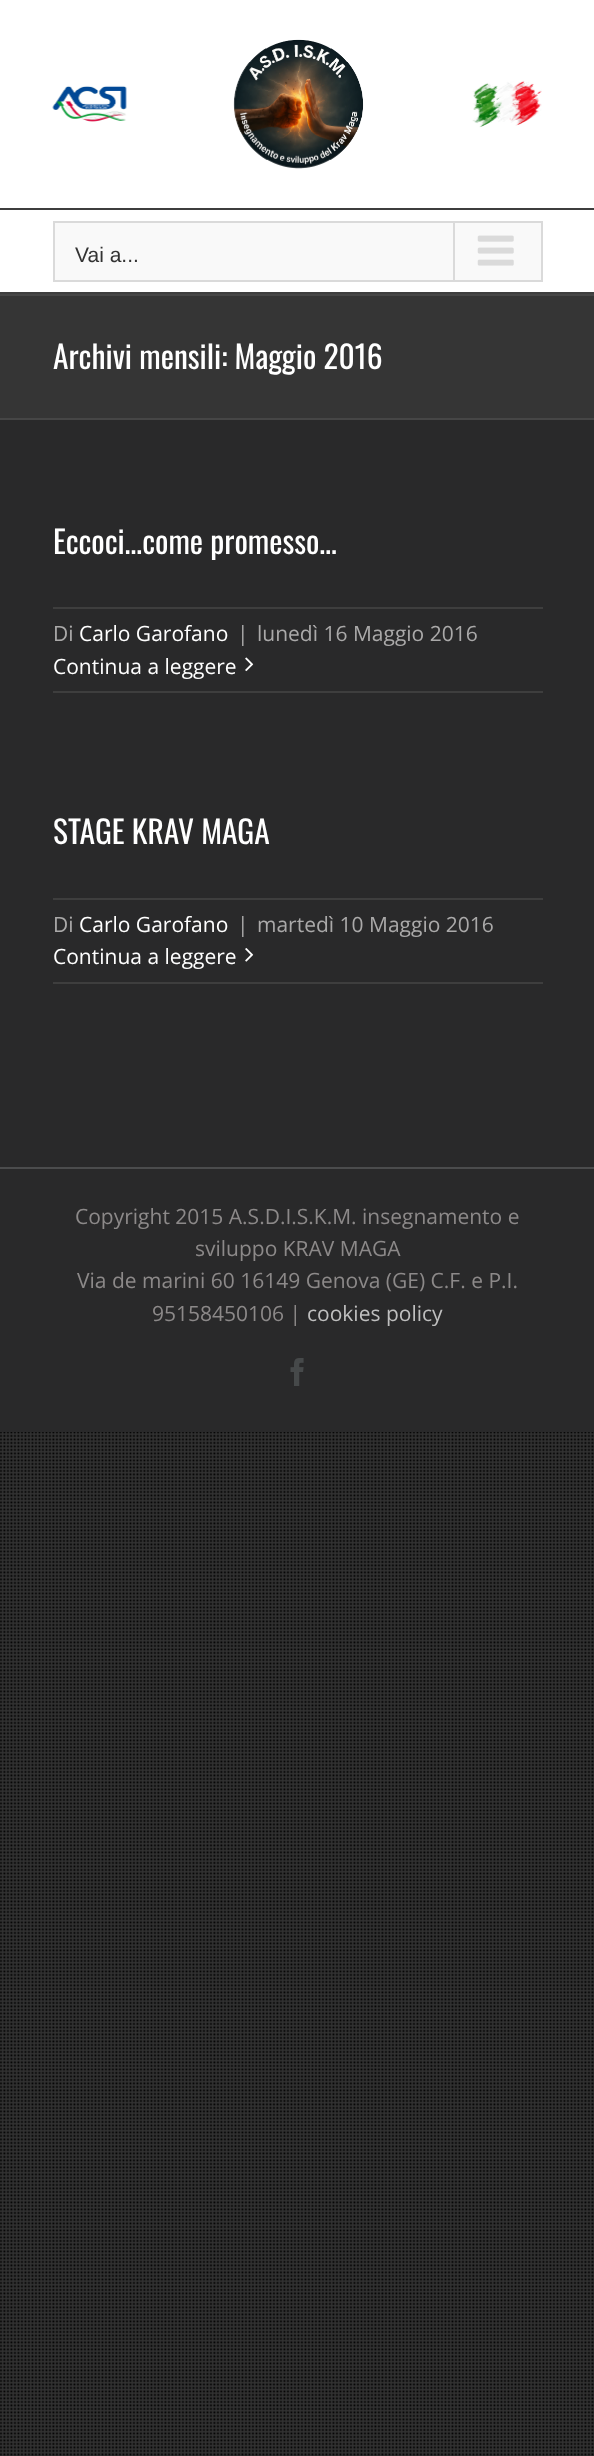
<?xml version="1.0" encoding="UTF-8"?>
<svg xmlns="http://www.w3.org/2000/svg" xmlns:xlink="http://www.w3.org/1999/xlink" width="594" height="2456">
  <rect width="100%" height="100%" fill="#ffffff" />
  <image x="0" y="1432" width="594" height="1024" xlink:href="image1.png" />
  <rect y="420" width="594" height="1012" fill="#29292a" />
  <rect y="208" width="594" height="2" fill="#3e3e3e" />
  <image x="52" y="39" width="490" height="130" xlink:href="image2.png" />
  <rect y="292" width="594" height="2" fill="#3e3e3e" />
  <rect x="54" y="222" width="488" height="59" fill="#f9f9f9" stroke="#dadada" stroke-width="2" />
  <rect x="453" y="222" width="2" height="58" fill="#dadada" />
  <image x="477" y="235" width="37" height="31" xlink:href="image3.png" />
  <rect y="296" width="594" height="122" fill="#353535" />
  <rect y="294" width="594" height="2" fill="#464646" />
  <rect y="418" width="594" height="2" fill="#464646" />
  <rect x="53" y="607" width="490" height="2" fill="#3e3e3e" />
  <rect x="53" y="691" width="490" height="2" fill="#3e3e3e" />
  <image x="245" y="657" width="9" height="15" xlink:href="image4.png" />
  <rect x="53" y="898" width="490" height="2" fill="#3e3e3e" />
  <rect x="53" y="982" width="490" height="2" fill="#3e3e3e" />
  <image x="245" y="948" width="9" height="14" xlink:href="image5.png" />
  <rect y="1167" width="594" height="2" fill="#4b4c4d" />
  <image x="290" y="1358" width="14" height="28" xlink:href="image6.png" />
  <text x="75" y="262" style="font-family: Liberation Sans; font-size: 21px; fill: #333333">Vai a...</text>
  <text x="53" y="369" style="font-family: Oswald; font-size: 31.5px; fill: #ffffff">Archivi mensili: Maggio 2016</text>
  <text x="53" y="554" style="font-family: Oswald; font-size: 31.5px; fill: #ffffff">Eccoci…come promesso…</text>
  <text x="53" y="641" style="font-family: Open Sans; font-size: 21px; fill: #aaa9a9">Di</text>
  <text x="79" y="641" style="font-family: Open Sans; font-size: 21px; fill: #ffffff">Carlo Garofano</text>
  <text x="237" y="641" style="font-family: Open Sans; font-size: 21px; fill: #aaa9a9">|</text>
  <text x="257" y="641" style="font-family: Open Sans; font-size: 21px; fill: #aaa9a9">lunedì 16 Maggio 2016</text>
  <text x="53" y="674" style="font-family: Open Sans; font-size: 21px; fill: #ffffff">Continua a leggere</text>
  <text x="53" y="844" style="font-family: Oswald; font-size: 31.5px; fill: #ffffff">STAGE KRAV MAGA</text>
  <text x="53" y="932" style="font-family: Open Sans; font-size: 21px; fill: #aaa9a9">Di</text>
  <text x="79" y="932" style="font-family: Open Sans; font-size: 21px; fill: #ffffff">Carlo Garofano</text>
  <text x="237" y="932" style="font-family: Open Sans; font-size: 21px; fill: #aaa9a9">|</text>
  <text x="257" y="932" style="font-family: Open Sans; font-size: 21px; fill: #aaa9a9">martedì 10 Maggio 2016</text>
  <text x="53" y="964" style="font-family: Open Sans; font-size: 21px; fill: #ffffff">Continua a leggere</text>
  <text x="75" y="1224" style="font-family: Open Sans; font-size: 21px; fill: #8c8989">Copyright 2015 A.S.D.I.S.K.M. insegnamento e</text>
  <text x="195" y="1256" style="font-family: Open Sans; font-size: 21px; fill: #8c8989">sviluppo KRAV MAGA</text>
  <text x="77" y="1288" style="font-family: Open Sans; font-size: 21px; fill: #8c8989">Via de marini 60 16149 Genova (GE) C.F. e P.I.</text>
  <text x="152" y="1321" style="font-family: Open Sans; font-size: 21px; fill: #8c8989">95158450106 |</text>
  <text x="307" y="1321" style="font-family: Open Sans; font-size: 21px; fill: #bfbfbf">cookies policy</text>
</svg>
